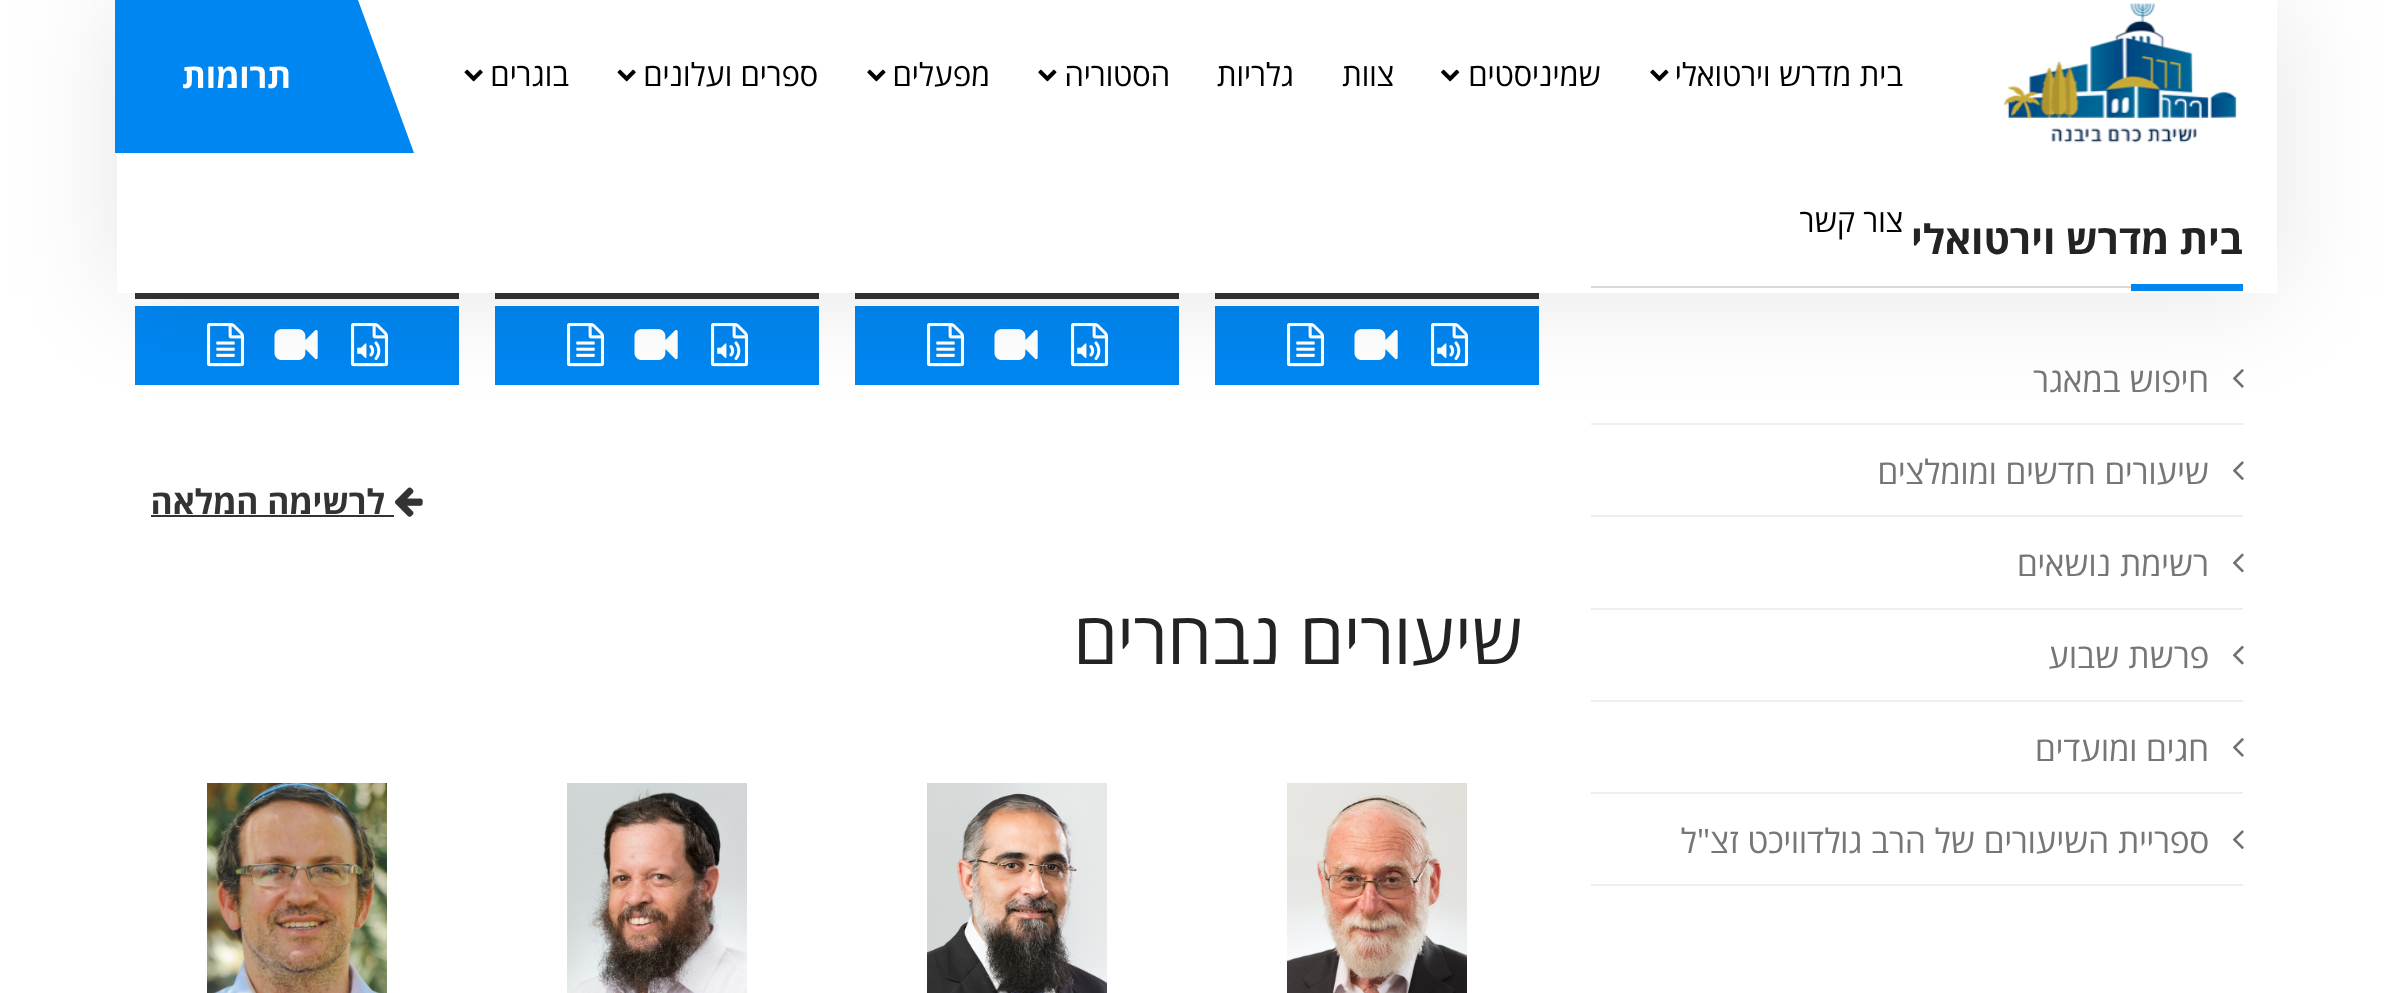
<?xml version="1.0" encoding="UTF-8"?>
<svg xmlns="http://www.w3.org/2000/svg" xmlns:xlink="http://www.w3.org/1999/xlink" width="2394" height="993">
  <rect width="100%" height="100%" fill="#ffffff" />
  <rect x="1215" y="293" width="324" height="6" fill="#333333" />
  <rect x="1215" y="306" width="324" height="79" fill="#0086f0" />
  <image x="1431" y="323" width="38" height="44" xlink:href="image10.png" />
  <image x="1354" y="329" width="44" height="31" xlink:href="image11.png" />
  <image x="1287" y="323" width="38" height="44" xlink:href="image12.png" />
  <rect x="855" y="293" width="324" height="6" fill="#333333" />
  <rect x="855" y="306" width="324" height="79" fill="#0086f0" />
  <image x="1071" y="323" width="38" height="44" xlink:href="image10.png" />
  <image x="994" y="329" width="44" height="31" xlink:href="image11.png" />
  <image x="927" y="323" width="38" height="44" xlink:href="image12.png" />
  <rect x="495" y="293" width="324" height="6" fill="#333333" />
  <rect x="495" y="306" width="324" height="79" fill="#0086f0" />
  <image x="711" y="323" width="38" height="44" xlink:href="image10.png" />
  <image x="634" y="329" width="44" height="31" xlink:href="image11.png" />
  <image x="567" y="323" width="38" height="44" xlink:href="image12.png" />
  <rect x="135" y="293" width="324" height="6" fill="#333333" />
  <rect x="135" y="306" width="324" height="79" fill="#0086f0" />
  <image x="351" y="323" width="38" height="44" xlink:href="image10.png" />
  <image x="274" y="329" width="44" height="31" xlink:href="image11.png" />
  <image x="207" y="323" width="38" height="44" xlink:href="image12.png" />
  <rect x="117" width="2160" height="293" fill="#000000" fill-opacity="0.1" filter="blur(56px)" />
  <rect x="117" width="2160" height="293" fill="#ffffff" />
  <image x="2003" y="3" width="234" height="140" xlink:href="image1.png" />
  <image x="1650" y="69" width="19" height="13" xlink:href="image2.png" />
  <image x="1441" y="69" width="19" height="13" xlink:href="image3.png" />
  <image x="1038" y="69" width="19" height="13" xlink:href="image2.png" />
  <image x="867" y="69" width="19" height="13" xlink:href="image2.png" />
  <image x="617" y="69" width="19" height="13" xlink:href="image4.png" />
  <image x="464" y="69" width="19" height="13" xlink:href="image4.png" />
  <rect x="115" width="209" height="153" fill="#0086f0" />
  <rect x="1591" y="286" width="540" height="2" fill="#d9d9d9" />
  <rect x="2131" y="284" width="112" height="7" fill="#0086f0" />
  <rect x="1591" y="423" width="652" height="2" fill="#eeeeee" />
  <image x="2232" y="369" width="12" height="19" xlink:href="image5.png" />
  <rect x="1591" y="515" width="652" height="2" fill="#eeeeee" />
  <image x="2232" y="461" width="12" height="19" xlink:href="image6.png" />
  <rect x="1591" y="608" width="652" height="2" fill="#eeeeee" />
  <image x="2232" y="553" width="12" height="20" xlink:href="image7.png" />
  <rect x="1591" y="700" width="652" height="2" fill="#eeeeee" />
  <image x="2232" y="645" width="12" height="20" xlink:href="image8.png" />
  <rect x="1591" y="792" width="652" height="2" fill="#eeeeee" />
  <image x="2232" y="738" width="12" height="19" xlink:href="image9.png" />
  <rect x="1591" y="884" width="652" height="2" fill="#eeeeee" />
  <image x="2232" y="830" width="12" height="19" xlink:href="image6.png" />
  <image x="395" y="487" width="28" height="30" xlink:href="image13.png" />
  <rect x="151" y="515" width="243" height="2" fill="#333333" />
  <image x="1287" y="783" width="180" height="210" xlink:href="image14.png" />
  <image x="927" y="783" width="180" height="210" xlink:href="image15.png" />
  <image x="567" y="783" width="180" height="210" xlink:href="image16.png" />
  <image x="207" y="783" width="180" height="210" xlink:href="image17.png" />
  <text x="1903" y="86" style="font-family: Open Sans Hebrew; font-size: 31.5px; direction: rtl; fill: #000000">בית מדרש וירטואלי</text>
  <text x="1601" y="86" style="font-family: Open Sans Hebrew; font-size: 31.5px; direction: rtl; fill: #000000">שמיניסטים</text>
  <text x="1394" y="86" style="font-family: Open Sans Hebrew; font-size: 31.5px; direction: rtl; fill: #000000">צוות</text>
  <text x="1294" y="86" style="font-family: Open Sans Hebrew; font-size: 31.5px; direction: rtl; fill: #000000">גלריות</text>
  <text x="1170" y="86" style="font-family: Open Sans Hebrew; font-size: 31.5px; direction: rtl; fill: #000000">הסטוריה</text>
  <text x="990" y="86" style="font-family: Open Sans Hebrew; font-size: 31.5px; direction: rtl; fill: #000000">מפעלים</text>
  <text x="818" y="86" style="font-family: Open Sans Hebrew; font-size: 31.5px; direction: rtl; fill: #000000">ספרים ועלונים</text>
  <text x="569" y="86" style="font-family: Open Sans Hebrew; font-size: 31.5px; direction: rtl; fill: #000000">בוגרים</text>
  <text x="1903" y="232" style="font-family: Open Sans Hebrew; font-size: 31.5px; direction: rtl; fill: #000000">צור קשר</text>
  <text x="291" y="88" style="font-family: Open Sans Hebrew; font-size: 33.75px; font-weight: bold; direction: rtl; fill: #ffffff">תרומות</text>
  <path d="M 268 0 h 90 l 56 153 h -90 z" fill="#0086f0" />
  <text x="2243" y="254" style="font-family: Open Sans Hebrew; font-size: 40.5px; font-weight: bold; direction: rtl; fill: #232323">בית מדרש וירטואלי</text>
  <text x="2209" y="392" style="font-family: Open Sans Hebrew; font-size: 33.75px; direction: rtl; fill: #767676">חיפוש במאגר</text>
  <text x="2209" y="484" style="font-family: Open Sans Hebrew; font-size: 33.75px; direction: rtl; fill: #767676">שיעורים חדשים ומומלצים</text>
  <text x="2209" y="576" style="font-family: Open Sans Hebrew; font-size: 33.75px; direction: rtl; fill: #767676">רשימת נושאים</text>
  <text x="2209" y="668" style="font-family: Open Sans Hebrew; font-size: 33.75px; direction: rtl; fill: #767676">פרשת שבוע</text>
  <text x="2209" y="761" style="font-family: Open Sans Hebrew; font-size: 33.75px; direction: rtl; fill: #767676">חגים ומועדים</text>
  <text x="2209" y="853" style="font-family: Open Sans Hebrew; font-size: 33.75px; direction: rtl; fill: #767676">ספריית השיעורים של הרב גולדוויכט זצ"ל</text>
  <text x="385" y="514" style="font-family: Open Sans Hebrew; font-size: 33.75px; font-weight: bold; direction: rtl; fill: #333333">לרשימה המלאה</text>
  <text x="1523" y="664" style="font-family: Open Sans Hebrew; font-size: 72px; direction: rtl; fill: #232323">שיעורים נבחרים</text>
</svg>
